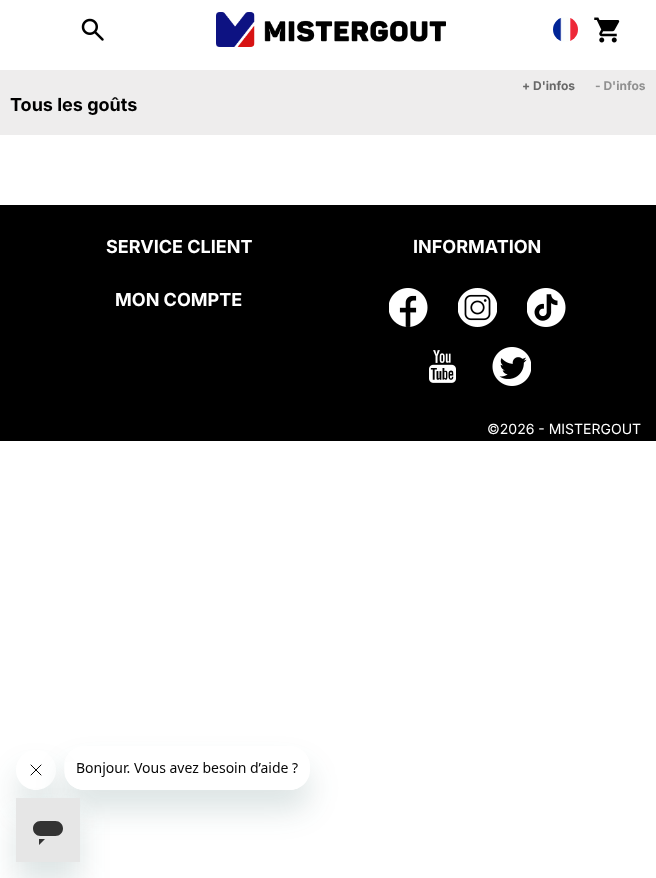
<?xml version="1.0" encoding="UTF-8"?>
<svg xmlns="http://www.w3.org/2000/svg" xmlns:xlink="http://www.w3.org/1999/xlink" width="656" height="878">
  <defs>
    <clipPath id="clip1"><path d="M 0 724 h 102 v 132 h -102 z m 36 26 c 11 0 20 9 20 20 c 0 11 -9 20 -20 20 c -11 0 -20 -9 -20 -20 c 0 -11 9 -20 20 -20 z" clip-rule="evenodd" /></clipPath>
    <clipPath id="clip2"><path d="M 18 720 h 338 v 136 h -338 z m 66 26 h 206 c 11 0 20 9 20 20 v 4 c 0 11 -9 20 -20 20 h -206 c -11 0 -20 -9 -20 -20 v -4 c 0 -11 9 -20 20 -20 z" clip-rule="evenodd" /></clipPath>
  </defs>
  <rect width="100%" height="100%" fill="#ffffff" />
  <image x="81" y="18" width="23" height="23" xlink:href="image1.png" />
  <image x="216" y="12" width="230" height="35" xlink:href="image2.png" />
  <image x="553" y="17" width="25" height="25" xlink:href="image3.png" />
  <image x="594" y="17" width="26" height="26" xlink:href="image4.png" />
  <rect y="70" width="656" height="65" fill="#eeeded" />
  <rect y="205" width="656" height="236" fill="#000000" />
  <image x="389" y="288" width="39" height="39" xlink:href="image5.png" />
  <image x="458" y="288" width="39" height="39" xlink:href="image6.png" />
  <image x="527" y="288" width="39" height="39" xlink:href="image7.png" />
  <image x="429" y="350" width="27" height="33" xlink:href="image8.png" />
  <image x="492" y="347" width="39" height="39" xlink:href="image9.png" />
  <g clip-path="url(#clip1)">
    <rect x="16" y="770" width="40" height="40" rx="20" fill="#17494d" fill-opacity="0.15" filter="blur(15px)" />
  </g>
  <image x="30" y="764" width="12" height="12" xlink:href="image11.png" />
  <g clip-path="url(#clip2)">
    <rect x="64" y="766" width="246" height="44" rx="20" fill="#17494d" fill-opacity="0.15" filter="blur(15px)" />
  </g>
  <image x="65" y="762" width="233" height="28" xlink:href="image10.png" />
  <rect x="16" y="818" width="64" height="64" fill="#17494d" fill-opacity="0.15" filter="blur(15px)" />
  <image x="16" y="798" width="64" height="64" xlink:href="image12.png" />
  <text x="522" y="90" style="font-family: Inter; font-size: 12px; font-weight: bold; fill: #686868">+ D'infos</text>
  <text x="595" y="90" style="font-family: Inter; font-size: 12px; font-weight: bold; fill: #909090">- D'infos</text>
  <text x="10" y="111" style="font-family: Inter; font-size: 18px; font-weight: bold; fill: #000000">Tous les goûts</text>
  <text x="106" y="253" style="font-family: Inter; font-size: 18px; font-weight: bold; fill: #ffffff">SERVICE CLIENT</text>
  <text x="413" y="253" style="font-family: Inter; font-size: 18px; font-weight: bold; fill: #ffffff">INFORMATION</text>
  <text x="115" y="306" style="font-family: Inter; font-size: 18px; font-weight: bold; fill: #ffffff">MON COMPTE</text>
  <text x="487" y="434" style="font-family: Inter; font-size: 14px; fill: #ffffff">©2026 - MISTERGOUT</text>
</svg>
